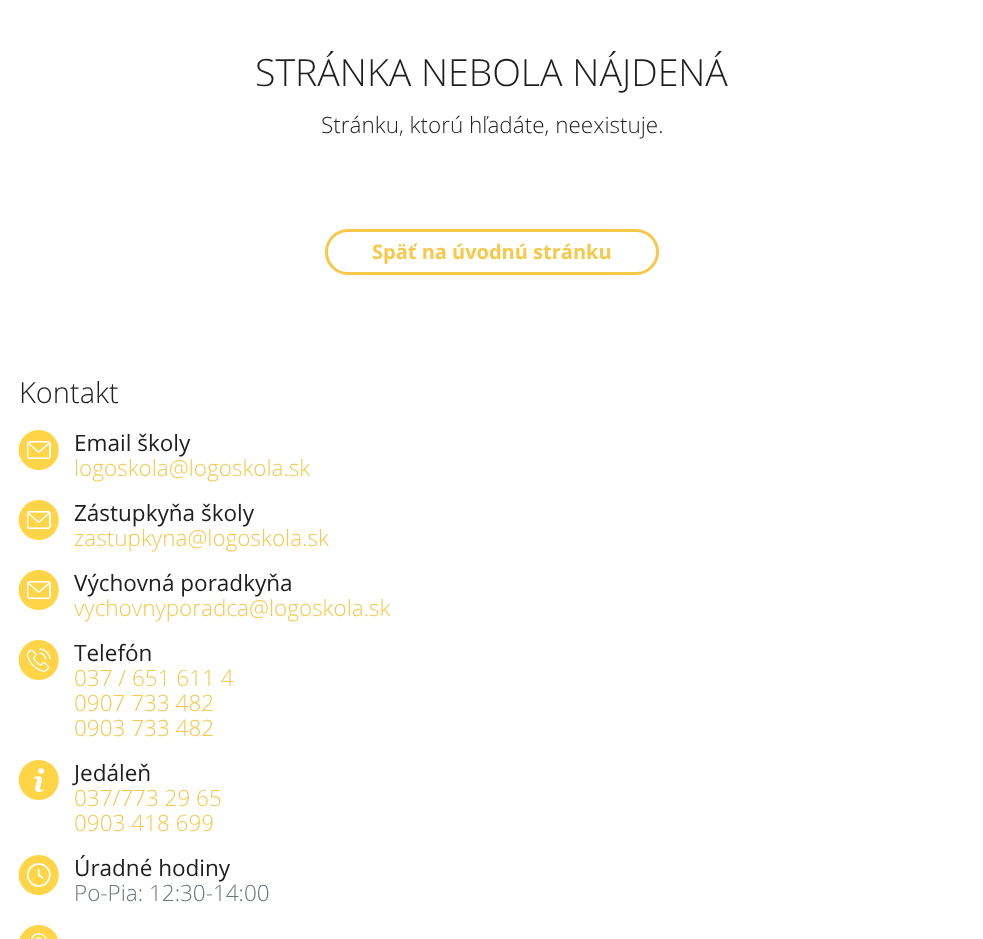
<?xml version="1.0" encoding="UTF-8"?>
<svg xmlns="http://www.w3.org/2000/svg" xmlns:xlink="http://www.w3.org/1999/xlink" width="983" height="939">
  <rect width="100%" height="100%" fill="#ffffff" />
  <rect x="326.5" y="230.5" width="331" height="43" rx="21.5" fill="none" stroke="#fac748" stroke-width="3" />
  <image x="18" y="430" width="41" height="40" xlink:href="image1.png" />
  <image x="18" y="500" width="41" height="40" xlink:href="image2.png" />
  <image x="18" y="570" width="41" height="40" xlink:href="image3.png" />
  <image x="18" y="640" width="41" height="40" xlink:href="image4.png" />
  <image x="18" y="760" width="41" height="40" xlink:href="image5.png" />
  <image x="18" y="855" width="41" height="40" xlink:href="image6.png" />
  <image x="19" y="925" width="39" height="14" xlink:href="image7.png" />
  <text x="255" y="86" style="font-family: Open Sans; font-size: 37.5px; font-weight: 300; fill: #1e1e1e">STRÁNKA NEBOLA NÁJDENÁ</text>
  <text x="321" y="133" style="font-family: Open Sans; font-size: 22.5px; font-weight: 300; fill: #1e1e1e">Stránku, ktorú hľadáte, neexistuje.</text>
  <text x="372" y="259" style="font-family: Open Sans; font-size: 20px; font-weight: bold; fill: #fac748">Späť na úvodnú stránku</text>
  <text x="19" y="403" style="font-family: Open Sans; font-size: 29px; font-weight: 300; fill: #1e1e1e">Kontakt</text>
  <text x="74" y="451" style="font-family: Open Sans; font-size: 22.5px; fill: #1e1e1e">Email školy</text>
  <text x="74" y="476" style="font-family: Open Sans; font-size: 22.5px; font-weight: 300; fill: #fac748">logoskola@logoskola.sk</text>
  <text x="74" y="521" style="font-family: Open Sans; font-size: 22.5px; fill: #1e1e1e">Zástupkyňa školy</text>
  <text x="74" y="546" style="font-family: Open Sans; font-size: 22.5px; font-weight: 300; fill: #fac748">zastupkyna@logoskola.sk</text>
  <text x="74" y="591" style="font-family: Open Sans; font-size: 22.5px; fill: #1e1e1e">Výchovná poradkyňa</text>
  <text x="74" y="616" style="font-family: Open Sans; font-size: 22.5px; font-weight: 300; fill: #fac748">vychovnyporadca@logoskola.sk</text>
  <text x="74" y="661" style="font-family: Open Sans; font-size: 22.5px; fill: #1e1e1e">Telefón</text>
  <text x="74" y="686" style="font-family: Open Sans; font-size: 22.5px; font-weight: 300; fill: #fac748">037 / 651 611 4</text>
  <text x="74" y="711" style="font-family: Open Sans; font-size: 22.5px; font-weight: 300; fill: #fac748">0907 733 482</text>
  <text x="74" y="736" style="font-family: Open Sans; font-size: 22.5px; font-weight: 300; fill: #fac748">0903 733 482</text>
  <text x="74" y="781" style="font-family: Open Sans; font-size: 22.5px; fill: #1e1e1e">Jedáleň</text>
  <text x="74" y="806" style="font-family: Open Sans; font-size: 22.5px; font-weight: 300; fill: #fac748">037/773 29 65</text>
  <text x="74" y="831" style="font-family: Open Sans; font-size: 22.5px; font-weight: 300; fill: #fac748">0903 418 699</text>
  <text x="74" y="876" style="font-family: Open Sans; font-size: 22.5px; fill: #1e1e1e">Úradné hodiny</text>
  <text x="74" y="901" style="font-family: Open Sans; font-size: 22.5px; font-weight: 300; fill: #6c757d">Po-Pia: 12:30-14:00</text>
</svg>
